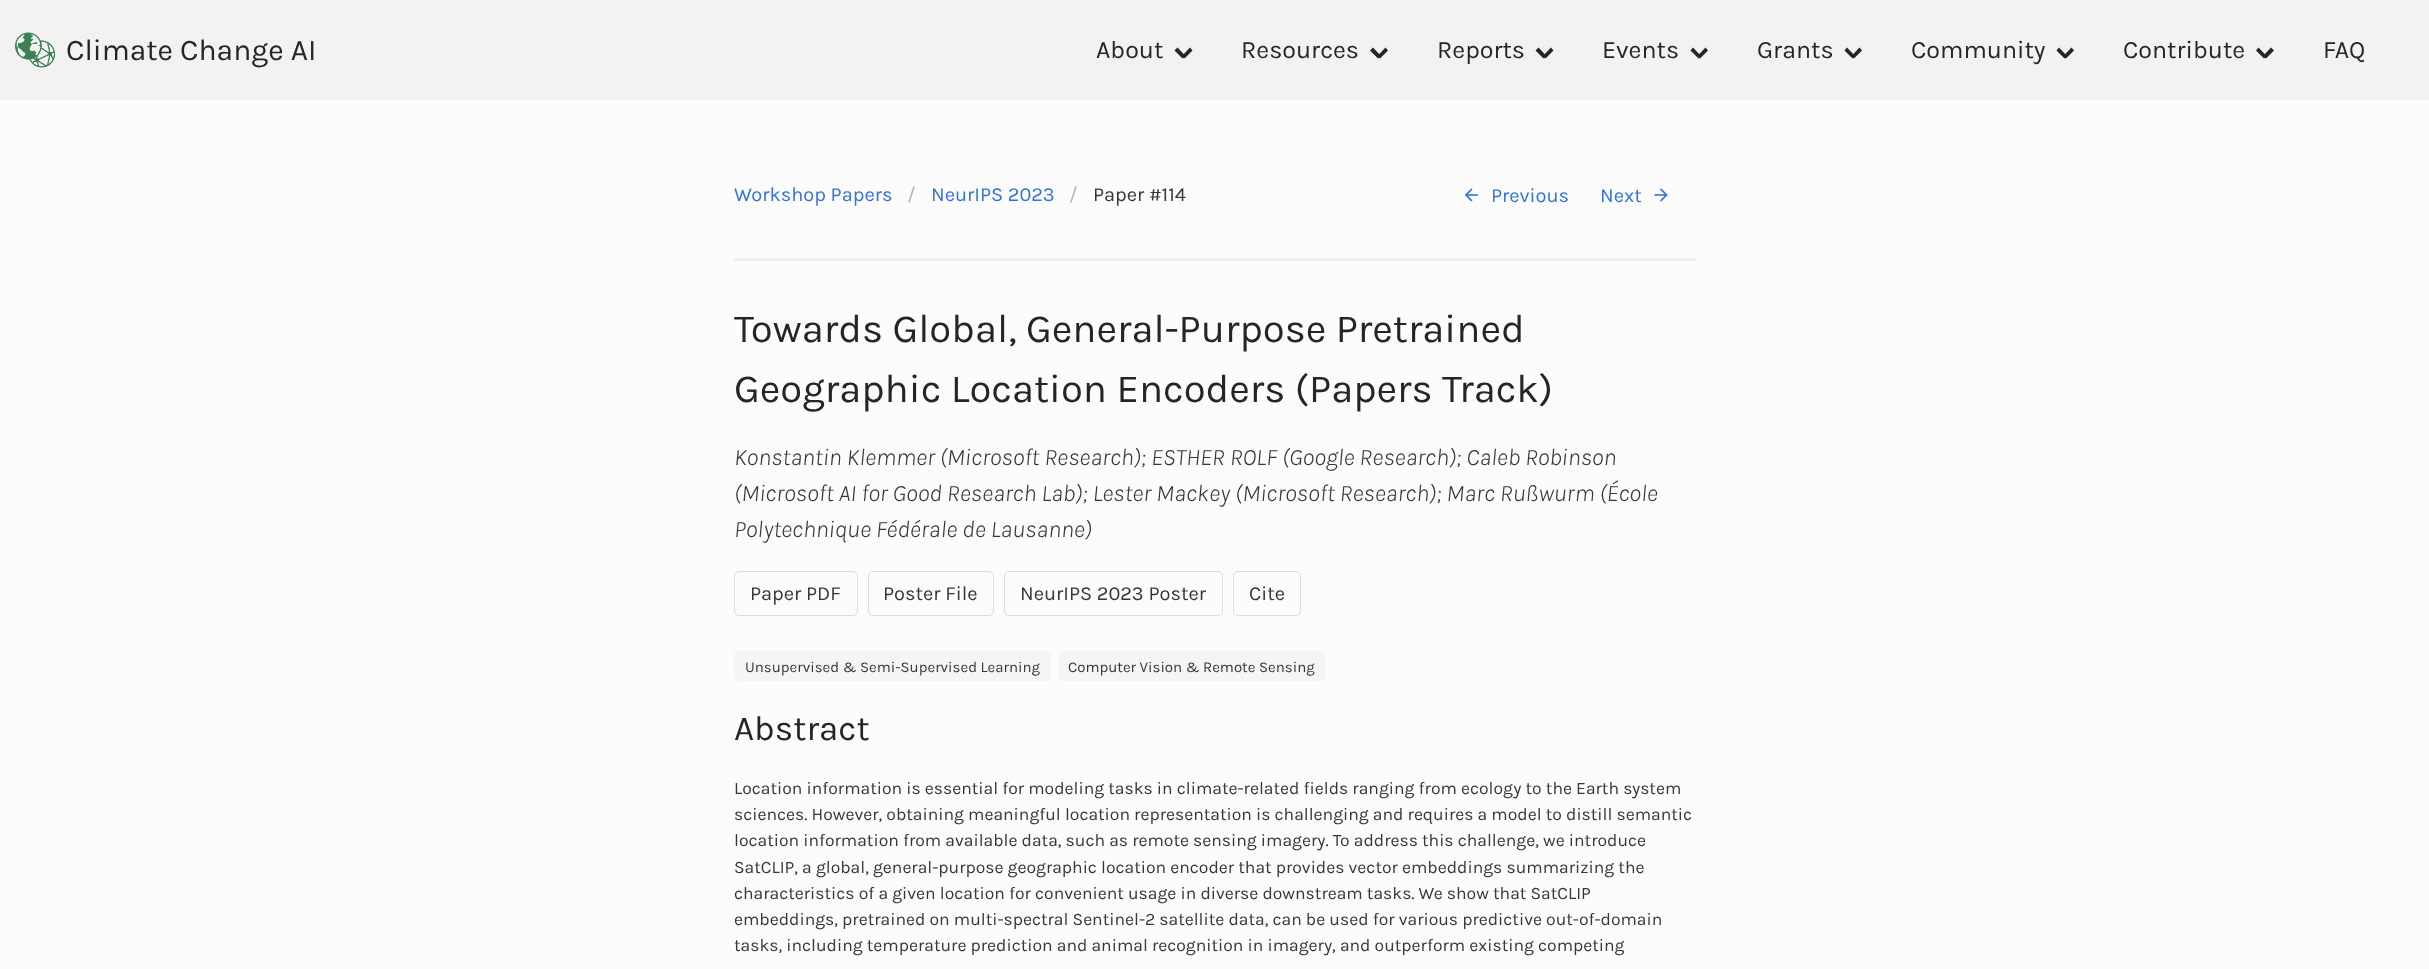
<?xml version="1.0" encoding="UTF-8"?>
<svg xmlns="http://www.w3.org/2000/svg" xmlns:xlink="http://www.w3.org/1999/xlink" width="2429" height="969">
  <rect width="100%" height="100%" fill="#fcfcfc" />
  <rect width="2429" height="100" fill="#f3f2f1" />
  <image x="15" y="32" width="41" height="36" xlink:href="image1.png" />
  <path d="M 1182 56 l 8 -8.5 l 2.5 3 l -8 8 z" fill="#252525" />
  <path d="M 1174.5 50.5 l 3 -3 l 8 8.5 l -3 2.5 z" fill="#252525" />
  <path d="M 1377.5 56 l 8 -8.5 l 2.5 3 l -8 8 z" fill="#252525" />
  <path d="M 1370 50.5 l 3 -3 l 8 8.5 l -3 2.5 z" fill="#252525" />
  <path d="M 1543 56 l 8 -8.5 l 2.5 3 l -8 8 z" fill="#252525" />
  <path d="M 1535.5 50.5 l 3 -3 l 8 8.5 l -3 2.5 z" fill="#252525" />
  <path d="M 1697.5 56 l 8 -8.5 l 2.5 3 l -8 8 z" fill="#252525" />
  <path d="M 1690.5 50.5 l 2.5 -3 l 8 8.5 l -2.5 2.5 z" fill="#252525" />
  <path d="M 1851.5 56 l 8 -8.5 l 2.5 3 l -8 8 z" fill="#252525" />
  <path d="M 1844.5 50.5 l 2.5 -3 l 8 8.5 l -2.5 2.5 z" fill="#252525" />
  <path d="M 2063.5 56 l 8 -8.5 l 2.5 3 l -8 8 z" fill="#252525" />
  <path d="M 2056.5 50.5 l 2.5 -3 l 8 8.5 l -2.5 2.5 z" fill="#252525" />
  <path d="M 2263 56 l 8 -8.5 l 3 3 l -8 8 z" fill="#252525" />
  <path d="M 2256 50.5 l 2.5 -3 l 8 8.5 l -2.5 2.5 z" fill="#252525" />
  <image x="1464" y="188" width="14" height="14" xlink:href="image2.png" />
  <image x="1654" y="188" width="14" height="14" xlink:href="image3.png" />
  <rect x="734" y="258" width="962" height="3" fill="#eff0f1" />
  <rect x="734.5" y="571.5" width="123" height="44" rx="4.5" fill="none" stroke="#dbdbdb" />
  <rect x="868.5" y="571.5" width="125" height="44" rx="4.5" fill="none" stroke="#dbdbdb" />
  <rect x="1004.5" y="571.5" width="218" height="44" rx="4.5" fill="none" stroke="#dbdbdb" />
  <rect x="1233.5" y="571.5" width="67" height="44" rx="4.5" fill="none" stroke="#dbdbdb" />
  <rect x="734" y="651" width="317" height="30" rx="5" fill="#f5f5f5" />
  <rect x="1058" y="651" width="268" height="30" rx="5" fill="#f5f5f5" />
  <text x="66" y="60" style="font-family: Karla; font-size: 30px; fill: #252525">Climate Change AI</text>
  <text x="1096" y="58" style="font-family: Karla; font-size: 25px; fill: #252525">About</text>
  <text x="1241" y="58" style="font-family: Karla; font-size: 25px; fill: #252525">Resources</text>
  <text x="1437" y="58" style="font-family: Karla; font-size: 25px; fill: #252525">Reports</text>
  <text x="1602" y="58" style="font-family: Karla; font-size: 25px; fill: #252525">Events</text>
  <text x="1757" y="58" style="font-family: Karla; font-size: 25px; fill: #252525">Grants</text>
  <text x="1911" y="58" style="font-family: Karla; font-size: 25px; fill: #252525">Community</text>
  <text x="2123" y="58" style="font-family: Karla; font-size: 25px; fill: #252525">Contribute</text>
  <text x="2323" y="58" style="font-family: Karla; font-size: 25px; fill: #252525">FAQ</text>
  <text x="734" y="201" style="font-family: Karla; font-size: 20px; fill: #3273dc">Workshop Papers</text>
  <text x="907" y="201" style="font-family: Karla; font-size: 20px; fill: #b5b5b5">/</text>
  <text x="931" y="201" style="font-family: Karla; font-size: 20px; fill: #3273dc">NeurIPS 2023</text>
  <text x="1069" y="201" style="font-family: Karla; font-size: 20px; fill: #b5b5b5">/</text>
  <text x="1093" y="201" style="font-family: Karla; font-size: 20px; fill: #363636">Paper #114</text>
  <text x="1491" y="202" style="font-family: Karla; font-size: 20px; fill: #3273dc">Previous</text>
  <text x="1600" y="202" style="font-family: Karla; font-size: 20px; fill: #3273dc">Next</text>
  <text x="734" y="342" style="font-family: Karla; font-size: 40px; fill: #252525">Towards Global, General-Purpose Pretrained</text>
  <text x="734" y="402" style="font-family: Karla; font-size: 40px; fill: #252525">Geographic Location Encoders (Papers Track)</text>
  <text x="734" y="465" style="font-family: Karla; font-size: 24px; font-weight: 300; font-style: italic; fill: #363636">Konstantin Klemmer (Microsoft Research); ESTHER ROLF (Google Research); Caleb Robinson</text>
  <text x="734" y="501" style="font-family: Karla; font-size: 24px; font-weight: 300; font-style: italic; fill: #363636">(Microsoft AI for Good Research Lab); Lester Mackey (Microsoft Research); Marc Rußwurm (École</text>
  <text x="734" y="537" style="font-family: Karla; font-size: 24px; font-weight: 300; font-style: italic; fill: #363636">Polytechnique Fédérale de Lausanne)</text>
  <text x="750" y="600" style="font-family: Karla; font-size: 20px; fill: #363636">Paper PDF</text>
  <text x="883" y="600" style="font-family: Karla; font-size: 20px; fill: #363636">Poster File</text>
  <text x="1020" y="600" style="font-family: Karla; font-size: 20px; fill: #363636">NeurIPS 2023 Poster</text>
  <text x="1249" y="600" style="font-family: Karla; font-size: 20px; fill: #363636">Cite</text>
  <text x="745" y="672" style="font-family: Karla; font-size: 15px; fill: #363636">Unsupervised &amp; Semi-Supervised Learning</text>
  <text x="1068" y="672" style="font-family: Karla; font-size: 15px; fill: #363636">Computer Vision &amp; Remote Sensing</text>
  <text x="734" y="740" style="font-family: Karla; font-size: 35px; fill: #252525">Abstract</text>
  <text x="734" y="794" style="font-family: Karla; font-size: 17.5px; fill: #363636">Location information is essential for modeling tasks in climate-related fields ranging from ecology to the Earth system</text>
  <text x="734" y="820" style="font-family: Karla; font-size: 17.5px; fill: #363636">sciences. However, obtaining meaningful location representation is challenging and requires a model to distill semantic</text>
  <text x="734" y="846" style="font-family: Karla; font-size: 17.5px; fill: #363636">location information from available data, such as remote sensing imagery. To address this challenge, we introduce</text>
  <text x="734" y="873" style="font-family: Karla; font-size: 17.5px; fill: #363636">SatCLIP, a global, general-purpose geographic location encoder that provides vector embeddings summarizing the</text>
  <text x="734" y="899" style="font-family: Karla; font-size: 17.5px; fill: #363636">characteristics of a given location for convenient usage in diverse downstream tasks. We show that SatCLIP</text>
  <text x="734" y="925" style="font-family: Karla; font-size: 17.5px; fill: #363636">embeddings, pretrained on multi-spectral Sentinel-2 satellite data, can be used for various predictive out-of-domain</text>
  <text x="734" y="951" style="font-family: Karla; font-size: 17.5px; fill: #363636">tasks, including temperature prediction and animal recognition in imagery, and outperform existing competing</text>
</svg>
